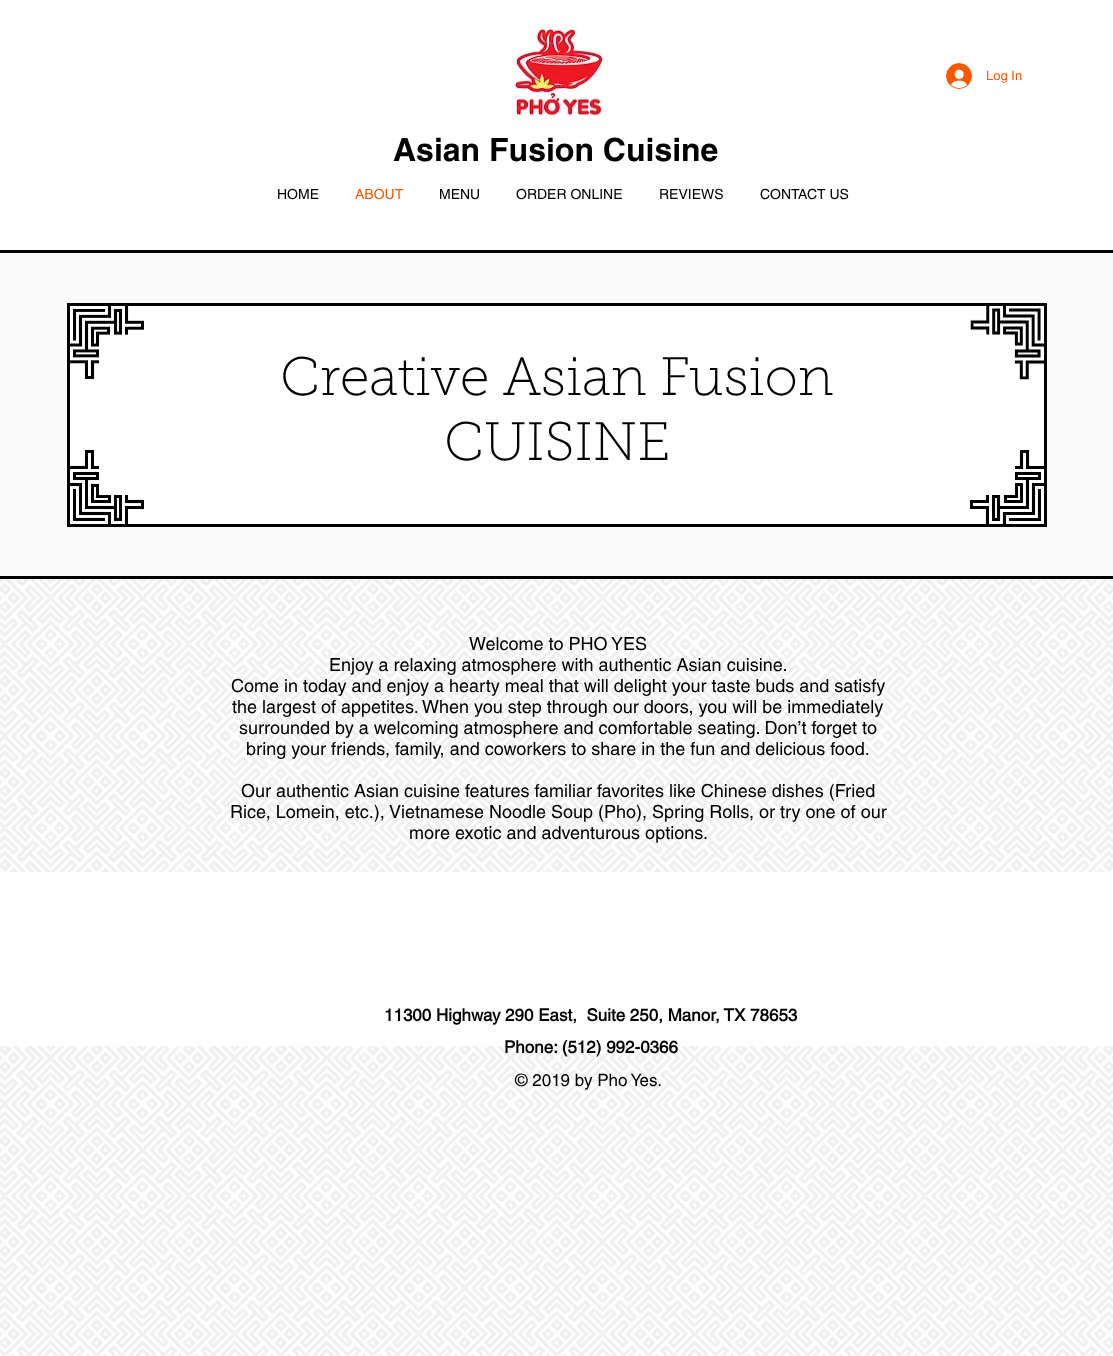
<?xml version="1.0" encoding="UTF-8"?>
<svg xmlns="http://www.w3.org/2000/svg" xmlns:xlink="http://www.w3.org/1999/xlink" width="1113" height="1356">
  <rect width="100%" height="100%" fill="#ffffff" />
  <image x="511" y="26" width="94" height="93" xlink:href="image1.png" />
  <image x="946" y="63" width="26" height="26" xlink:href="image2.png" />
  <rect y="253" width="1113" height="323" fill="#fafafa" />
  <rect y="250" width="1113" height="3" fill="#000000" />
  <rect x="68.5" y="304.5" width="977" height="221" fill="#ffffff" stroke="#000000" stroke-width="3" />
  <image x="70" y="306" width="74" height="73" xlink:href="image3.png" />
  <image x="970" y="306" width="74" height="74" xlink:href="image4.png" />
  <image x="70" y="450" width="74" height="74" xlink:href="image5.png" />
  <image x="970" y="450" width="74" height="74" xlink:href="image6.png" />
  <rect y="576" width="1113" height="3" fill="#000000" />
  <image x="0" y="579" width="1113" height="777" xlink:href="image7.png" />
  <rect y="872" width="1113" height="174" fill="#ffffff" />
  <text x="986" y="80" style="font-family: helvetica; font-size: 13px; fill: #f95700">Log In</text>
  <text x="393" y="161" style="font-family: helvetica; font-size: 32px; font-weight: bold; fill: #000000">Asian Fusion Cuisine</text>
  <text x="277" y="199" style="font-family: helvetica; font-size: 14px; fill: #000000">HOME</text>
  <text x="355" y="199" style="font-family: helvetica; font-size: 14px; fill: #f95700">ABOUT</text>
  <text x="439" y="199" style="font-family: helvetica; font-size: 14px; fill: #000000">MENU</text>
  <text x="516" y="199" style="font-family: helvetica; font-size: 14px; fill: #000000">ORDER ONLINE</text>
  <text x="659" y="199" style="font-family: helvetica; font-size: 14px; fill: #000000">REVIEWS</text>
  <text x="760" y="199" style="font-family: helvetica; font-size: 14px; fill: #000000">CONTACT US</text>
  <text x="280" y="395" style="font-family: 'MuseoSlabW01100'; font-size: 54px; font-weight: 100; fill: #000000">Creative Asian Fusion</text>
  <text x="444" y="460" style="font-family: 'MuseoSlabW01100'; font-size: 54px; font-weight: 100; fill: #000000">CUISINE</text>
  <text x="469" y="650" style="font-family: helvetica; font-size: 18px; fill: #000000">Welcome to PHO YES</text>
  <text x="329" y="671" style="font-family: helvetica; font-size: 18px; fill: #000000">Enjoy a relaxing atmosphere with authentic Asian cuisine.</text>
  <text x="231" y="692" style="font-family: helvetica; font-size: 18px; fill: #000000">Come in today and enjoy a hearty meal that will delight your taste buds and satisfy</text>
  <text x="232" y="713" style="font-family: helvetica; font-size: 18px; fill: #000000">the largest of appetites. When you step through our doors, you will be immediately</text>
  <text x="239" y="734" style="font-family: helvetica; font-size: 18px; fill: #000000">surrounded by a welcoming atmosphere and comfortable seating. Don’t forget to</text>
  <text x="246" y="755" style="font-family: helvetica; font-size: 18px; fill: #000000">bring your friends, family, and coworkers to share in the fun and delicious food.</text>
  <text x="241" y="797" style="font-family: helvetica; font-size: 18px; fill: #000000">Our authentic Asian cuisine features familiar favorites like Chinese dishes (Fried</text>
  <text x="230" y="818" style="font-family: helvetica; font-size: 18px; fill: #000000">Rice, Lomein, etc.), Vietnamese Noodle Soup (Pho), Spring Rolls, or try one of our</text>
  <text x="409" y="839" style="font-family: helvetica; font-size: 18px; fill: #000000">more exotic and adventurous options.</text>
  <text x="384" y="1021" style="font-family: 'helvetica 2'; font-size: 17px; font-weight: bold; fill: #000000" xml:space="preserve">11300 Highway 290 East,  Suite 250, Manor, TX 78653</text>
  <text x="504" y="1053" style="font-family: 'helvetica 2'; font-size: 17px; font-weight: bold; fill: #000000">Phone: (512) 992-0366</text>
  <text x="515" y="1086" style="font-family: helvetica; font-size: 17px; fill: #000000">© 2019 by Pho Yes.</text>
</svg>
